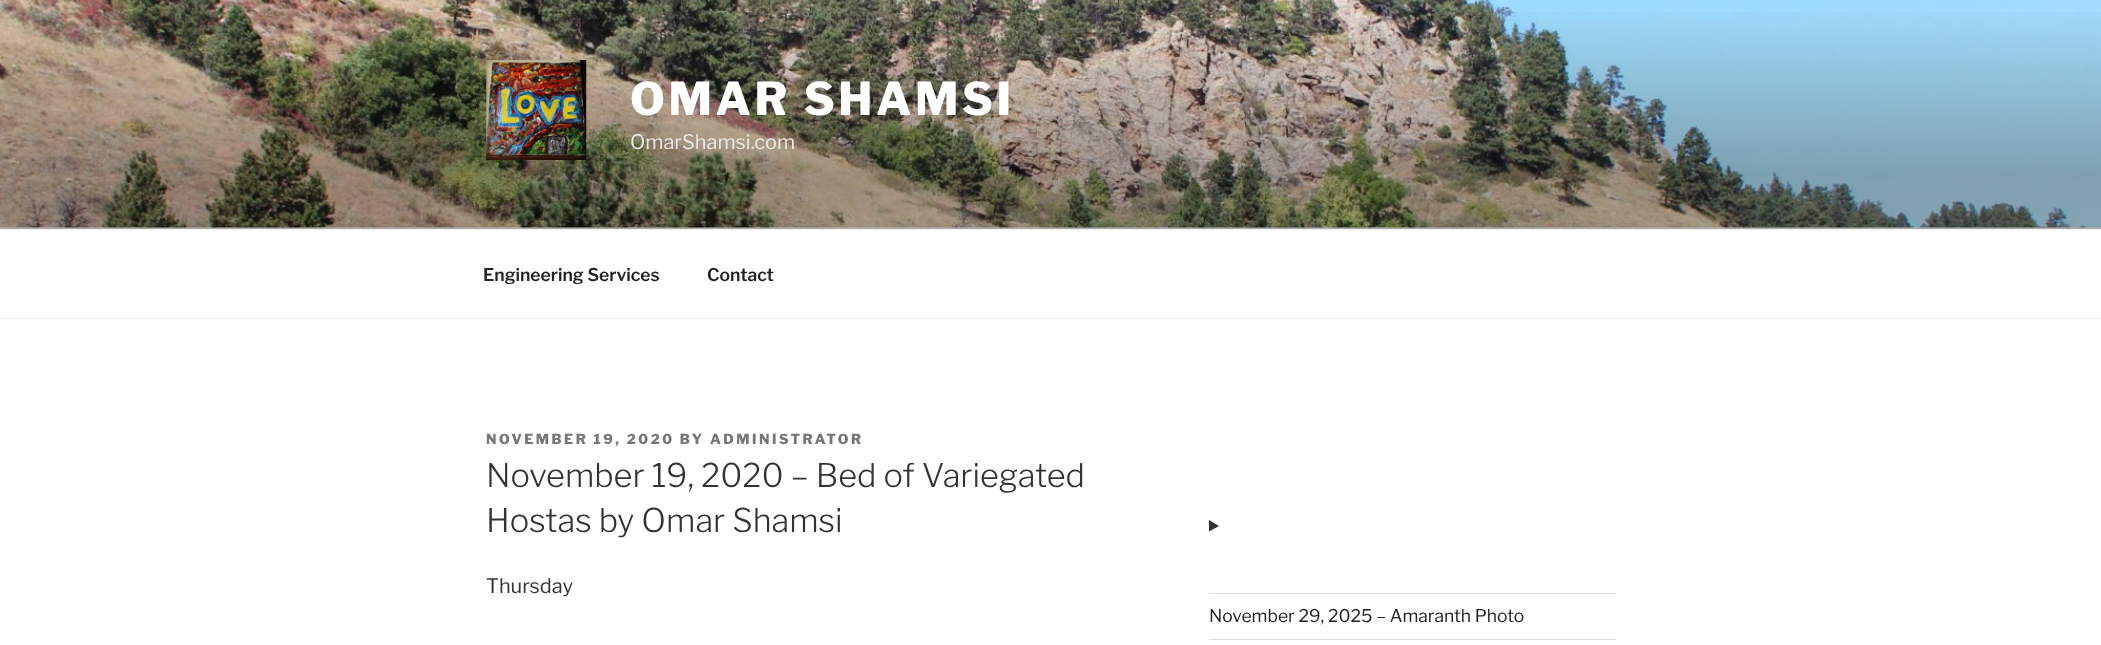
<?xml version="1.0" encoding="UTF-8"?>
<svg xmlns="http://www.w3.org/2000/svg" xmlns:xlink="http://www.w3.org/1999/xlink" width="2101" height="645">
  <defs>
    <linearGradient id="g1" gradientUnits="userSpaceOnUse" x1="1051" y1="0" x2="1051" y2="229"><stop offset="0" stop-color="#000000" stop-opacity="0" /><stop offset="0.75" stop-color="#000000" stop-opacity="0.3" /><stop offset="1" stop-color="#000000" stop-opacity="0.3" /></linearGradient>
  </defs>
  <rect width="100%" height="100%" fill="#ffffff" />
  <rect y="227" width="2101" height="2" fill="#fafafa" />
  <image x="0" y="0" width="2101" height="228" xlink:href="image1.png" />
  <rect y="12" width="2101" height="217" fill="url(#g1)" />
  <image x="486" y="60" width="101" height="100" xlink:href="image2.png" />
  <rect y="229" width="2101" height="1" fill="#eeeeee" />
  <rect y="318" width="2101" height="1" fill="#eeeeee" />
  <path d="M 1209 520 l 10 6 l -10 5.5 z" fill="#333333" />
  <rect x="1209" y="593" width="407" height="1" fill="#dddddd" />
  <rect x="1209" y="639" width="407" height="1" fill="#dddddd" />
  <text x="630" y="115" style="font-family: Libre Franklin; font-size: 45px; font-weight: 100; letter-spacing: 3.6px; fill: #ffffff">OMAR SHAMSI</text>
  <text x="630" y="149" style="font-family: 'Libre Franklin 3'; font-size: 20px; font-weight: 100; fill: #ebe8e4">OmarShamsi.com</text>
  <text x="483" y="281" style="font-family: 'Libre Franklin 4'; font-size: 17.5px; font-weight: 100; fill: #222222">Engineering Services</text>
  <text x="707" y="281" style="font-family: 'Libre Franklin 4'; font-size: 17.5px; font-weight: 100; fill: #222222">Contact</text>
  <text x="486" y="444" style="font-family: Libre Franklin; font-size: 13.75px; font-weight: 100; letter-spacing: 2.5px; fill: #767676">NOVEMBER 19, 2020 BY ADMINISTRATOR</text>
  <text x="486" y="487" style="font-family: 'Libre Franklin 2'; font-size: 32.5px; font-weight: 100; fill: #333333">November 19, 2020 – Bed of Variegated</text>
  <text x="486" y="532" style="font-family: 'Libre Franklin 2'; font-size: 32.5px; font-weight: 100; fill: #333333">Hostas by Omar Shamsi</text>
  <text x="486" y="593" style="font-family: 'Libre Franklin 3'; font-size: 20px; font-weight: 100; fill: #333333">Thursday</text>
  <text x="1209" y="622" style="font-family: 'Libre Franklin 3'; font-size: 17.5px; font-weight: 100; fill: #222222">November 29, 2025 – Amaranth Photo</text>
</svg>
